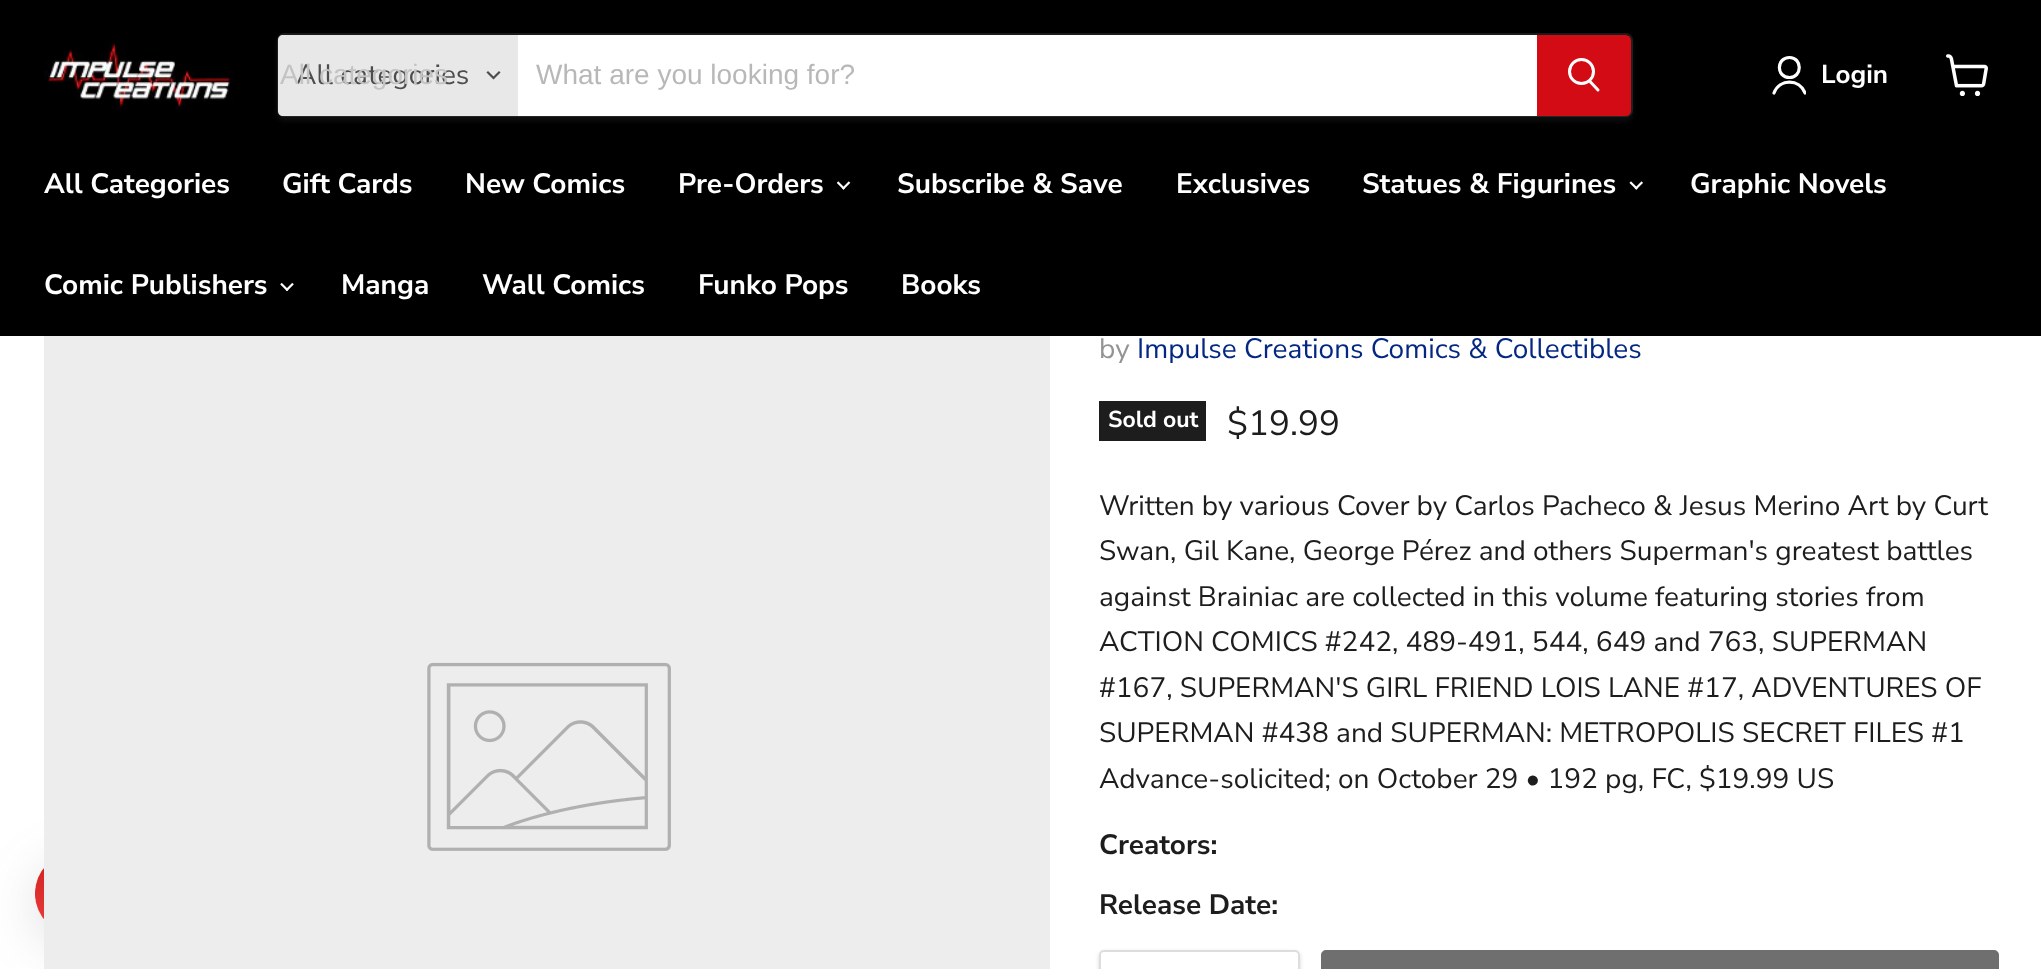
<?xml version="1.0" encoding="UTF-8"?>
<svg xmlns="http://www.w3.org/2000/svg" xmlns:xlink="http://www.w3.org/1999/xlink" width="2041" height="969">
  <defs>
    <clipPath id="clip1"><rect x="1771" y="54" width="35" height="42" /></clipPath>
    <linearGradient id="g1" gradientUnits="userSpaceOnUse" x1="160" y1="825" x2="113" y2="961"><stop offset="0" stop-color="#b60606" /><stop offset="1" stop-color="#ed3d3d" /></linearGradient>
  </defs>
  <rect width="100%" height="100%" fill="#ffffff" />
  <rect width="2041" height="336" fill="#000000" />
  <image x="44" y="40" width="190" height="70" xlink:href="image1.png" />
  <rect x="277" y="37" width="1356" height="84" rx="7" fill="#808080" fill-opacity="0.11" filter="blur(2.5px)" />
  <rect x="278" y="34" width="1354" height="82" rx="6" fill="none" stroke="#808080" stroke-opacity="0.2" stroke-width="2" />
  <path d="M 283 35 h 235 v 81 h -235 c -3 0 -5 -2 -5 -5 v -71 c 0 -3 2 -5 5 -5 z" fill="#e8e8e8" />
  <path d="M 493.5 78 l 5.5 -5.5 m -5.5 5.5 l -5.5 -5.5" fill="none" stroke="#4d4d4d" stroke-width="2.2" stroke-linecap="square" />
  <rect x="518" y="35" width="1019" height="81" fill="#ffffff" />
  <path d="M 1538 36 h 88 c 2 0 4 2 4 4 v 71 c 0 2 -2 4 -4 4 h -88 z" fill="#d30b15" stroke="#d30b15" stroke-width="2" />
  <path d="M 1598 90 l -8 -8.5" fill="none" stroke="#ffffff" stroke-width="3" stroke-linecap="round" />
  <circle cx="1581.5" cy="71.5" r="12" fill="none" stroke="#ffffff" stroke-width="3" />
  <path d="M 1789.5 77.5 c 13 0 13 -20 0 -20 c -13.5 0 -13.5 20 0 20 z" fill="none" stroke="#ffffff" stroke-width="3.2" stroke-linecap="round" stroke-linejoin="round" />
  <g clip-path="url(#clip1)">
    <path d="M 1805 93 c -5.5 -14.5 -25.5 -14.5 -31 0" fill="none" stroke="#ffffff" stroke-width="3.2" stroke-linecap="round" stroke-linejoin="round" />
  </g>
  <image x="1946" y="54" width="42" height="42" xlink:href="image2.png" />
  <image x="837" y="181" width="14" height="9" xlink:href="image3.png" />
  <image x="1629" y="181" width="14" height="9" xlink:href="image4.png" />
  <image x="280" y="282" width="14" height="10" xlink:href="image5.png" />
  <rect x="35" y="865" width="203" height="82" rx="41" fill="#64646f" fill-opacity="0.2" filter="blur(25.5px)" />
  <rect x="35" y="852" width="203" height="83" rx="41.5" fill="url(#g1)" />
  <ellipse cx="136.5" cy="893.5" rx="101.5" ry="41" fill="url(#g1)" />
  <rect x="44" y="336" width="1006" height="633" fill="#ededed" />
  <image x="427" y="662" width="244" height="189" xlink:href="image6.png" />
  <rect x="1099" y="401" width="107" height="40" fill="#1d1d1d" />
  <rect x="1099" y="952" width="201" height="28" rx="5" fill="#000000" fill-opacity="0.15" filter="blur(2px)" />
  <rect x="1100" y="951" width="199" height="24" rx="4" fill="#ffffff" stroke="#dddddd" stroke-width="2" />
  <rect x="1322" y="951" width="676" height="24" rx="4" fill="#6f6f6f" stroke="#6f6f6f" stroke-width="2" />
  <text x="296" y="84" style="font-family: Nunito Sans; font-size: 28px; fill: #4d4d4d">All categories</text>
  <text x="280" y="84" style="font-family: Liberation Sans; font-size: 28px; fill: #c3c3c3">All categories</text>
  <text x="536" y="84" style="font-family: Liberation Sans; font-size: 28px; fill: #b8b8b8">What are you looking for?</text>
  <text x="1821" y="83" style="font-family: Nunito Sans; font-size: 26px; font-weight: bold; fill: #ffffff">Login</text>
  <text x="44" y="193" style="font-family: Nunito Sans; font-size: 28px; font-weight: bold; fill: #ffffff">All Categories</text>
  <text x="282" y="193" style="font-family: Nunito Sans; font-size: 28px; font-weight: bold; fill: #ffffff">Gift Cards</text>
  <text x="465" y="193" style="font-family: Nunito Sans; font-size: 28px; font-weight: bold; fill: #ffffff">New Comics</text>
  <text x="678" y="193" style="font-family: Nunito Sans; font-size: 28px; font-weight: bold; fill: #ffffff">Pre-Orders</text>
  <text x="897" y="193" style="font-family: Nunito Sans; font-size: 28px; font-weight: bold; fill: #ffffff">Subscribe &amp; Save</text>
  <text x="1176" y="193" style="font-family: Nunito Sans; font-size: 28px; font-weight: bold; fill: #ffffff">Exclusives</text>
  <text x="1362" y="193" style="font-family: Nunito Sans; font-size: 28px; font-weight: bold; fill: #ffffff">Statues &amp; Figurines</text>
  <text x="1690" y="193" style="font-family: Nunito Sans; font-size: 28px; font-weight: bold; fill: #ffffff">Graphic Novels</text>
  <text x="44" y="294" style="font-family: Nunito Sans; font-size: 28px; font-weight: bold; fill: #ffffff">Comic Publishers</text>
  <text x="341" y="294" style="font-family: Nunito Sans; font-size: 28px; font-weight: bold; fill: #ffffff">Manga</text>
  <text x="482" y="294" style="font-family: Nunito Sans; font-size: 28px; font-weight: bold; fill: #ffffff">Wall Comics</text>
  <text x="698" y="294" style="font-family: Nunito Sans; font-size: 28px; font-weight: bold; fill: #ffffff">Funko Pops</text>
  <text x="901" y="294" style="font-family: Nunito Sans; font-size: 28px; font-weight: bold; fill: #ffffff">Books</text>
  <text x="1099" y="358" style="font-family: Nunito Sans; font-size: 28px; fill: #949494">by</text>
  <text x="1137" y="358" style="font-family: Nunito Sans; font-size: 28px; fill: #042882">Impulse Creations Comics &amp; Collectibles</text>
  <text x="1108" y="427" style="font-family: Nunito Sans; font-size: 23px; font-weight: bold; fill: #ffffff">Sold out</text>
  <text x="1227" y="435" style="font-family: Nunito Sans; font-size: 35px; fill: #1d1d1d">$19.99</text>
  <text x="1099" y="515" style="font-family: Nunito Sans; font-size: 28px; fill: #1d1d1d">Written by various Cover by Carlos Pacheco &amp; Jesus Merino Art by Curt</text>
  <text x="1099" y="560" style="font-family: Nunito Sans; font-size: 28px; fill: #1d1d1d">Swan, Gil Kane, George Pérez and others Superman's greatest battles</text>
  <text x="1099" y="606" style="font-family: Nunito Sans; font-size: 28px; fill: #1d1d1d">against Brainiac are collected in this volume featuring stories from</text>
  <text x="1099" y="651" style="font-family: Nunito Sans; font-size: 28px; fill: #1d1d1d">ACTION COMICS #242, 489-491, 544, 649 and 763, SUPERMAN</text>
  <text x="1099" y="697" style="font-family: Nunito Sans; font-size: 28px; fill: #1d1d1d">#167, SUPERMAN'S GIRL FRIEND LOIS LANE #17, ADVENTURES OF</text>
  <text x="1099" y="742" style="font-family: Nunito Sans; font-size: 28px; fill: #1d1d1d">SUPERMAN #438 and SUPERMAN: METROPOLIS SECRET FILES #1</text>
  <text x="1099" y="788" style="font-family: Nunito Sans; font-size: 28px; fill: #1d1d1d">Advance-solicited; on October 29 • 192 pg, FC, $19.99 US</text>
  <text x="1099" y="854" style="font-family: Nunito Sans; font-size: 28px; font-weight: bold; fill: #1d1d1d">Creators:</text>
  <text x="1099" y="914" style="font-family: Nunito Sans; font-size: 28px; font-weight: bold; fill: #1d1d1d">Release Date:</text>
</svg>
